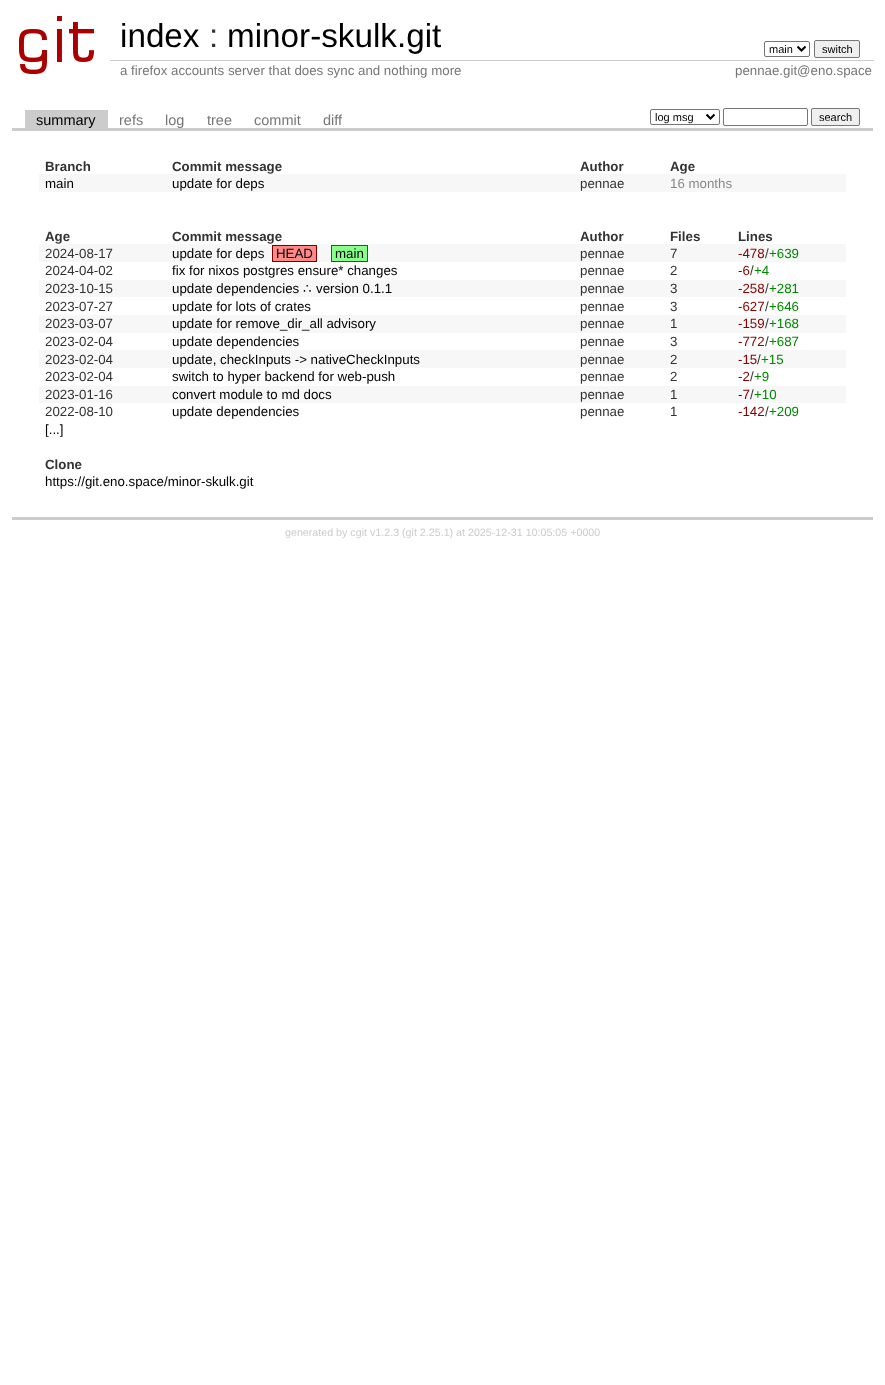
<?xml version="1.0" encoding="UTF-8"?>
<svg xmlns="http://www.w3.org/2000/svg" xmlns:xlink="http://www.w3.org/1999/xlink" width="885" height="1385">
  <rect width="100%" height="100%" fill="#ffffff" />
  <image x="19" y="16" width="75" height="58" xlink:href="image1.png" />
  <rect x="764.5" y="41.5" width="45" height="15" rx="1.5" fill="none" stroke="#767676" />
  <path d="M 797.5 46.5 l 4 4 l 4 -4" fill="none" stroke="#000000" stroke-width="2" />
  <rect x="814.5" y="40.5" width="45" height="17" rx="1.5" fill="#efefef" stroke="#767676" />
  <rect x="110" y="60" width="764" height="1" fill="#cccccc" />
  <rect x="12" y="128" width="861" height="3" fill="#cccccc" />
  <rect x="25" y="110" width="83" height="18" fill="#cccccc" />
  <rect x="650.5" y="109.5" width="69" height="15" rx="1.5" fill="none" stroke="#767676" />
  <path d="M 706.5 114.5 l 4 4 l 4 -4" fill="none" stroke="#000000" stroke-width="2" />
  <rect x="723.5" y="108.5" width="84" height="17" rx="1.5" fill="none" stroke="#767676" />
  <rect x="811.5" y="108.5" width="48" height="17" rx="1.5" fill="#efefef" stroke="#767676" />
  <rect x="12" y="517" width="861" height="3" fill="#cccccc" />
  <rect x="39" y="174" width="807" height="18" fill="#f7f7f7" />
  <rect x="39" y="244" width="807" height="18" fill="#f7f7f7" />
  <rect x="272.5" y="245.5" width="44" height="16" fill="#ff8888" stroke="#770000" />
  <rect x="331.5" y="245.5" width="36" height="16" fill="#88ff88" stroke="#007700" />
  <rect x="39" y="280" width="807" height="17" fill="#f7f7f7" />
  <rect x="39" y="315" width="807" height="18" fill="#f7f7f7" />
  <rect x="39" y="350" width="807" height="18" fill="#f7f7f7" />
  <rect x="39" y="386" width="807" height="17" fill="#f7f7f7" />
  <text x="120" y="47" style="font-family: Liberation Sans; font-size: 33.25px; fill: #000000">index</text>
  <text x="209" y="47" style="font-family: Liberation Sans; font-size: 33.25px; fill: #333333">:</text>
  <text x="227" y="47" style="font-family: Liberation Sans; font-size: 33.25px; fill: #000000">minor-skulk.git</text>
  <text x="769" y="53" style="font-family: Liberation Sans; font-size: 11px; fill: #000000">main</text>
  <text x="822" y="53" style="font-family: Liberation Sans; font-size: 11px; fill: #000000">switch</text>
  <text x="120" y="75" style="font-family: Liberation Sans; font-size: 13.3px; fill: #777777">a firefox accounts server that does sync and nothing more</text>
  <text x="735" y="75" style="font-family: Liberation Sans; font-size: 13.3px; fill: #777777">pennae.git@eno.space</text>
  <text x="36" y="125" style="font-family: Liberation Sans; font-size: 14.5px; fill: #000000">summary</text>
  <text x="119" y="125" style="font-family: Liberation Sans; font-size: 14.5px; fill: #777777">refs</text>
  <text x="165" y="125" style="font-family: Liberation Sans; font-size: 14.5px; fill: #777777">log</text>
  <text x="207" y="125" style="font-family: Liberation Sans; font-size: 14.5px; fill: #777777">tree</text>
  <text x="254" y="125" style="font-family: Liberation Sans; font-size: 14.5px; fill: #777777">commit</text>
  <text x="323" y="125" style="font-family: Liberation Sans; font-size: 14.5px; fill: #777777">diff</text>
  <text x="655" y="121" style="font-family: Liberation Sans; font-size: 11px; fill: #000000">log msg</text>
  <text x="819" y="121" style="font-family: Liberation Sans; font-size: 11px; fill: #000000">search</text>
  <text x="45" y="171" style="font-family: Liberation Sans; font-size: 13.3px; font-weight: bold; fill: #333333">Branch</text>
  <text x="172" y="171" style="font-family: Liberation Sans; font-size: 13.3px; font-weight: bold; fill: #333333">Commit message</text>
  <text x="580" y="171" style="font-family: Liberation Sans; font-size: 13.3px; font-weight: bold; fill: #333333">Author</text>
  <text x="670" y="171" style="font-family: Liberation Sans; font-size: 13.3px; font-weight: bold; fill: #333333">Age</text>
  <text x="45" y="188" style="font-family: Liberation Sans; font-size: 13.3px; fill: #000000">main</text>
  <text x="172" y="188" style="font-family: Liberation Sans; font-size: 13.3px; fill: #000000">update for deps</text>
  <text x="580" y="188" style="font-family: Liberation Sans; font-size: 13.3px; fill: #333333">pennae</text>
  <text x="670" y="188" style="font-family: Liberation Sans; font-size: 13.3px; fill: #888888">16 months</text>
  <text x="45" y="241" style="font-family: Liberation Sans; font-size: 13.3px; font-weight: bold; fill: #333333">Age</text>
  <text x="172" y="241" style="font-family: Liberation Sans; font-size: 13.3px; font-weight: bold; fill: #333333">Commit message</text>
  <text x="580" y="241" style="font-family: Liberation Sans; font-size: 13.3px; font-weight: bold; fill: #333333">Author</text>
  <text x="670" y="241" style="font-family: Liberation Sans; font-size: 13.3px; font-weight: bold; fill: #333333">Files</text>
  <text x="738" y="241" style="font-family: Liberation Sans; font-size: 13.3px; font-weight: bold; fill: #333333">Lines</text>
  <text x="45" y="258" style="font-family: Liberation Sans; font-size: 13.3px; fill: #333333">2024-08-17</text>
  <text x="172" y="258" style="font-family: Liberation Sans; font-size: 13.3px; fill: #000000">update for deps</text>
  <text x="276" y="258" style="font-family: Liberation Sans; font-size: 13.3px; fill: #000000">HEAD</text>
  <text x="335" y="258" style="font-family: Liberation Sans; font-size: 13.3px; fill: #000000">main</text>
  <text x="580" y="258" style="font-family: Liberation Sans; font-size: 13.3px; fill: #333333">pennae</text>
  <text x="670" y="258" style="font-family: Liberation Sans; font-size: 13.3px; fill: #333333">7</text>
  <text x="738" y="258" style="font-family: Liberation Sans; font-size: 13.3px; fill: #880000">-478</text>
  <text x="765" y="258" style="font-family: Liberation Sans; font-size: 13.3px; fill: #333333">/</text>
  <text x="769" y="258" style="font-family: Liberation Sans; font-size: 13.3px; fill: #008800">+639</text>
  <text x="45" y="275" style="font-family: Liberation Sans; font-size: 13.3px; fill: #333333">2024-04-02</text>
  <text x="172" y="275" style="font-family: Liberation Sans; font-size: 13.3px; fill: #000000">fix for nixos postgres ensure* changes</text>
  <text x="580" y="275" style="font-family: Liberation Sans; font-size: 13.3px; fill: #333333">pennae</text>
  <text x="670" y="275" style="font-family: Liberation Sans; font-size: 13.3px; fill: #333333">2</text>
  <text x="738" y="275" style="font-family: Liberation Sans; font-size: 13.3px; fill: #880000">-6</text>
  <text x="750" y="275" style="font-family: Liberation Sans; font-size: 13.3px; fill: #333333">/</text>
  <text x="754" y="275" style="font-family: Liberation Sans; font-size: 13.3px; fill: #008800">+4</text>
  <text x="45" y="293" style="font-family: Liberation Sans; font-size: 13.3px; fill: #333333">2023-10-15</text>
  <text x="172" y="293" style="font-family: Liberation Sans; font-size: 13.3px; fill: #000000">update dependencies</text>
  <text x="303" y="293" style="font-family: DejaVu Sans; font-size: 13.3px; fill: #000000">∴</text>
  <text x="316" y="293" style="font-family: Liberation Sans; font-size: 13.3px; fill: #000000">version 0.1.1</text>
  <text x="580" y="293" style="font-family: Liberation Sans; font-size: 13.3px; fill: #333333">pennae</text>
  <text x="670" y="293" style="font-family: Liberation Sans; font-size: 13.3px; fill: #333333">3</text>
  <text x="738" y="293" style="font-family: Liberation Sans; font-size: 13.3px; fill: #880000">-258</text>
  <text x="765" y="293" style="font-family: Liberation Sans; font-size: 13.3px; fill: #333333">/</text>
  <text x="769" y="293" style="font-family: Liberation Sans; font-size: 13.3px; fill: #008800">+281</text>
  <text x="45" y="311" style="font-family: Liberation Sans; font-size: 13.3px; fill: #333333">2023-07-27</text>
  <text x="172" y="311" style="font-family: Liberation Sans; font-size: 13.3px; fill: #000000">update for lots of crates</text>
  <text x="580" y="311" style="font-family: Liberation Sans; font-size: 13.3px; fill: #333333">pennae</text>
  <text x="670" y="311" style="font-family: Liberation Sans; font-size: 13.3px; fill: #333333">3</text>
  <text x="738" y="311" style="font-family: Liberation Sans; font-size: 13.3px; fill: #880000">-627</text>
  <text x="765" y="311" style="font-family: Liberation Sans; font-size: 13.3px; fill: #333333">/</text>
  <text x="769" y="311" style="font-family: Liberation Sans; font-size: 13.3px; fill: #008800">+646</text>
  <text x="45" y="328" style="font-family: Liberation Sans; font-size: 13.3px; fill: #333333">2023-03-07</text>
  <text x="172" y="328" style="font-family: Liberation Sans; font-size: 13.3px; fill: #000000">update for remove_dir_all advisory</text>
  <text x="580" y="328" style="font-family: Liberation Sans; font-size: 13.3px; fill: #333333">pennae</text>
  <text x="670" y="328" style="font-family: Liberation Sans; font-size: 13.3px; fill: #333333">1</text>
  <text x="738" y="328" style="font-family: Liberation Sans; font-size: 13.3px; fill: #880000">-159</text>
  <text x="765" y="328" style="font-family: Liberation Sans; font-size: 13.3px; fill: #333333">/</text>
  <text x="769" y="328" style="font-family: Liberation Sans; font-size: 13.3px; fill: #008800">+168</text>
  <text x="45" y="346" style="font-family: Liberation Sans; font-size: 13.3px; fill: #333333">2023-02-04</text>
  <text x="172" y="346" style="font-family: Liberation Sans; font-size: 13.3px; fill: #000000">update dependencies</text>
  <text x="580" y="346" style="font-family: Liberation Sans; font-size: 13.3px; fill: #333333">pennae</text>
  <text x="670" y="346" style="font-family: Liberation Sans; font-size: 13.3px; fill: #333333">3</text>
  <text x="738" y="346" style="font-family: Liberation Sans; font-size: 13.3px; fill: #880000">-772</text>
  <text x="765" y="346" style="font-family: Liberation Sans; font-size: 13.3px; fill: #333333">/</text>
  <text x="769" y="346" style="font-family: Liberation Sans; font-size: 13.3px; fill: #008800">+687</text>
  <text x="45" y="364" style="font-family: Liberation Sans; font-size: 13.3px; fill: #333333">2023-02-04</text>
  <text x="172" y="364" style="font-family: Liberation Sans; font-size: 13.3px; fill: #000000">update, checkInputs -&gt; nativeCheckInputs</text>
  <text x="580" y="364" style="font-family: Liberation Sans; font-size: 13.3px; fill: #333333">pennae</text>
  <text x="670" y="364" style="font-family: Liberation Sans; font-size: 13.3px; fill: #333333">2</text>
  <text x="738" y="364" style="font-family: Liberation Sans; font-size: 13.3px; fill: #880000">-15</text>
  <text x="757" y="364" style="font-family: Liberation Sans; font-size: 13.3px; fill: #333333">/</text>
  <text x="761" y="364" style="font-family: Liberation Sans; font-size: 13.3px; fill: #008800">+15</text>
  <text x="45" y="381" style="font-family: Liberation Sans; font-size: 13.3px; fill: #333333">2023-02-04</text>
  <text x="172" y="381" style="font-family: Liberation Sans; font-size: 13.3px; fill: #000000">switch to hyper backend for web-push</text>
  <text x="580" y="381" style="font-family: Liberation Sans; font-size: 13.3px; fill: #333333">pennae</text>
  <text x="670" y="381" style="font-family: Liberation Sans; font-size: 13.3px; fill: #333333">2</text>
  <text x="738" y="381" style="font-family: Liberation Sans; font-size: 13.3px; fill: #880000">-2</text>
  <text x="750" y="381" style="font-family: Liberation Sans; font-size: 13.3px; fill: #333333">/</text>
  <text x="754" y="381" style="font-family: Liberation Sans; font-size: 13.3px; fill: #008800">+9</text>
  <text x="45" y="399" style="font-family: Liberation Sans; font-size: 13.3px; fill: #333333">2023-01-16</text>
  <text x="172" y="399" style="font-family: Liberation Sans; font-size: 13.3px; fill: #000000">convert module to md docs</text>
  <text x="580" y="399" style="font-family: Liberation Sans; font-size: 13.3px; fill: #333333">pennae</text>
  <text x="670" y="399" style="font-family: Liberation Sans; font-size: 13.3px; fill: #333333">1</text>
  <text x="738" y="399" style="font-family: Liberation Sans; font-size: 13.3px; fill: #880000">-7</text>
  <text x="750" y="399" style="font-family: Liberation Sans; font-size: 13.3px; fill: #333333">/</text>
  <text x="754" y="399" style="font-family: Liberation Sans; font-size: 13.3px; fill: #008800">+10</text>
  <text x="45" y="416" style="font-family: Liberation Sans; font-size: 13.3px; fill: #333333">2022-08-10</text>
  <text x="172" y="416" style="font-family: Liberation Sans; font-size: 13.3px; fill: #000000">update dependencies</text>
  <text x="580" y="416" style="font-family: Liberation Sans; font-size: 13.3px; fill: #333333">pennae</text>
  <text x="670" y="416" style="font-family: Liberation Sans; font-size: 13.3px; fill: #333333">1</text>
  <text x="738" y="416" style="font-family: Liberation Sans; font-size: 13.3px; fill: #880000">-142</text>
  <text x="765" y="416" style="font-family: Liberation Sans; font-size: 13.3px; fill: #333333">/</text>
  <text x="769" y="416" style="font-family: Liberation Sans; font-size: 13.3px; fill: #008800">+209</text>
  <text x="45" y="434" style="font-family: Liberation Sans; font-size: 13.3px; fill: #000000">[...]</text>
  <text x="45" y="469" style="font-family: Liberation Sans; font-size: 13.3px; font-weight: bold; fill: #333333">Clone</text>
  <text x="45" y="486" style="font-family: Liberation Sans; font-size: 13.3px; fill: #000000">https://git.eno.space/minor-skulk.git</text>
  <text x="285" y="536" style="font-family: Liberation Sans; font-size: 10.7px; fill: #cccccc">generated by cgit v1.2.3 (git 2.25.1) at 2025-12-31 10:05:05 +0000</text>
</svg>
